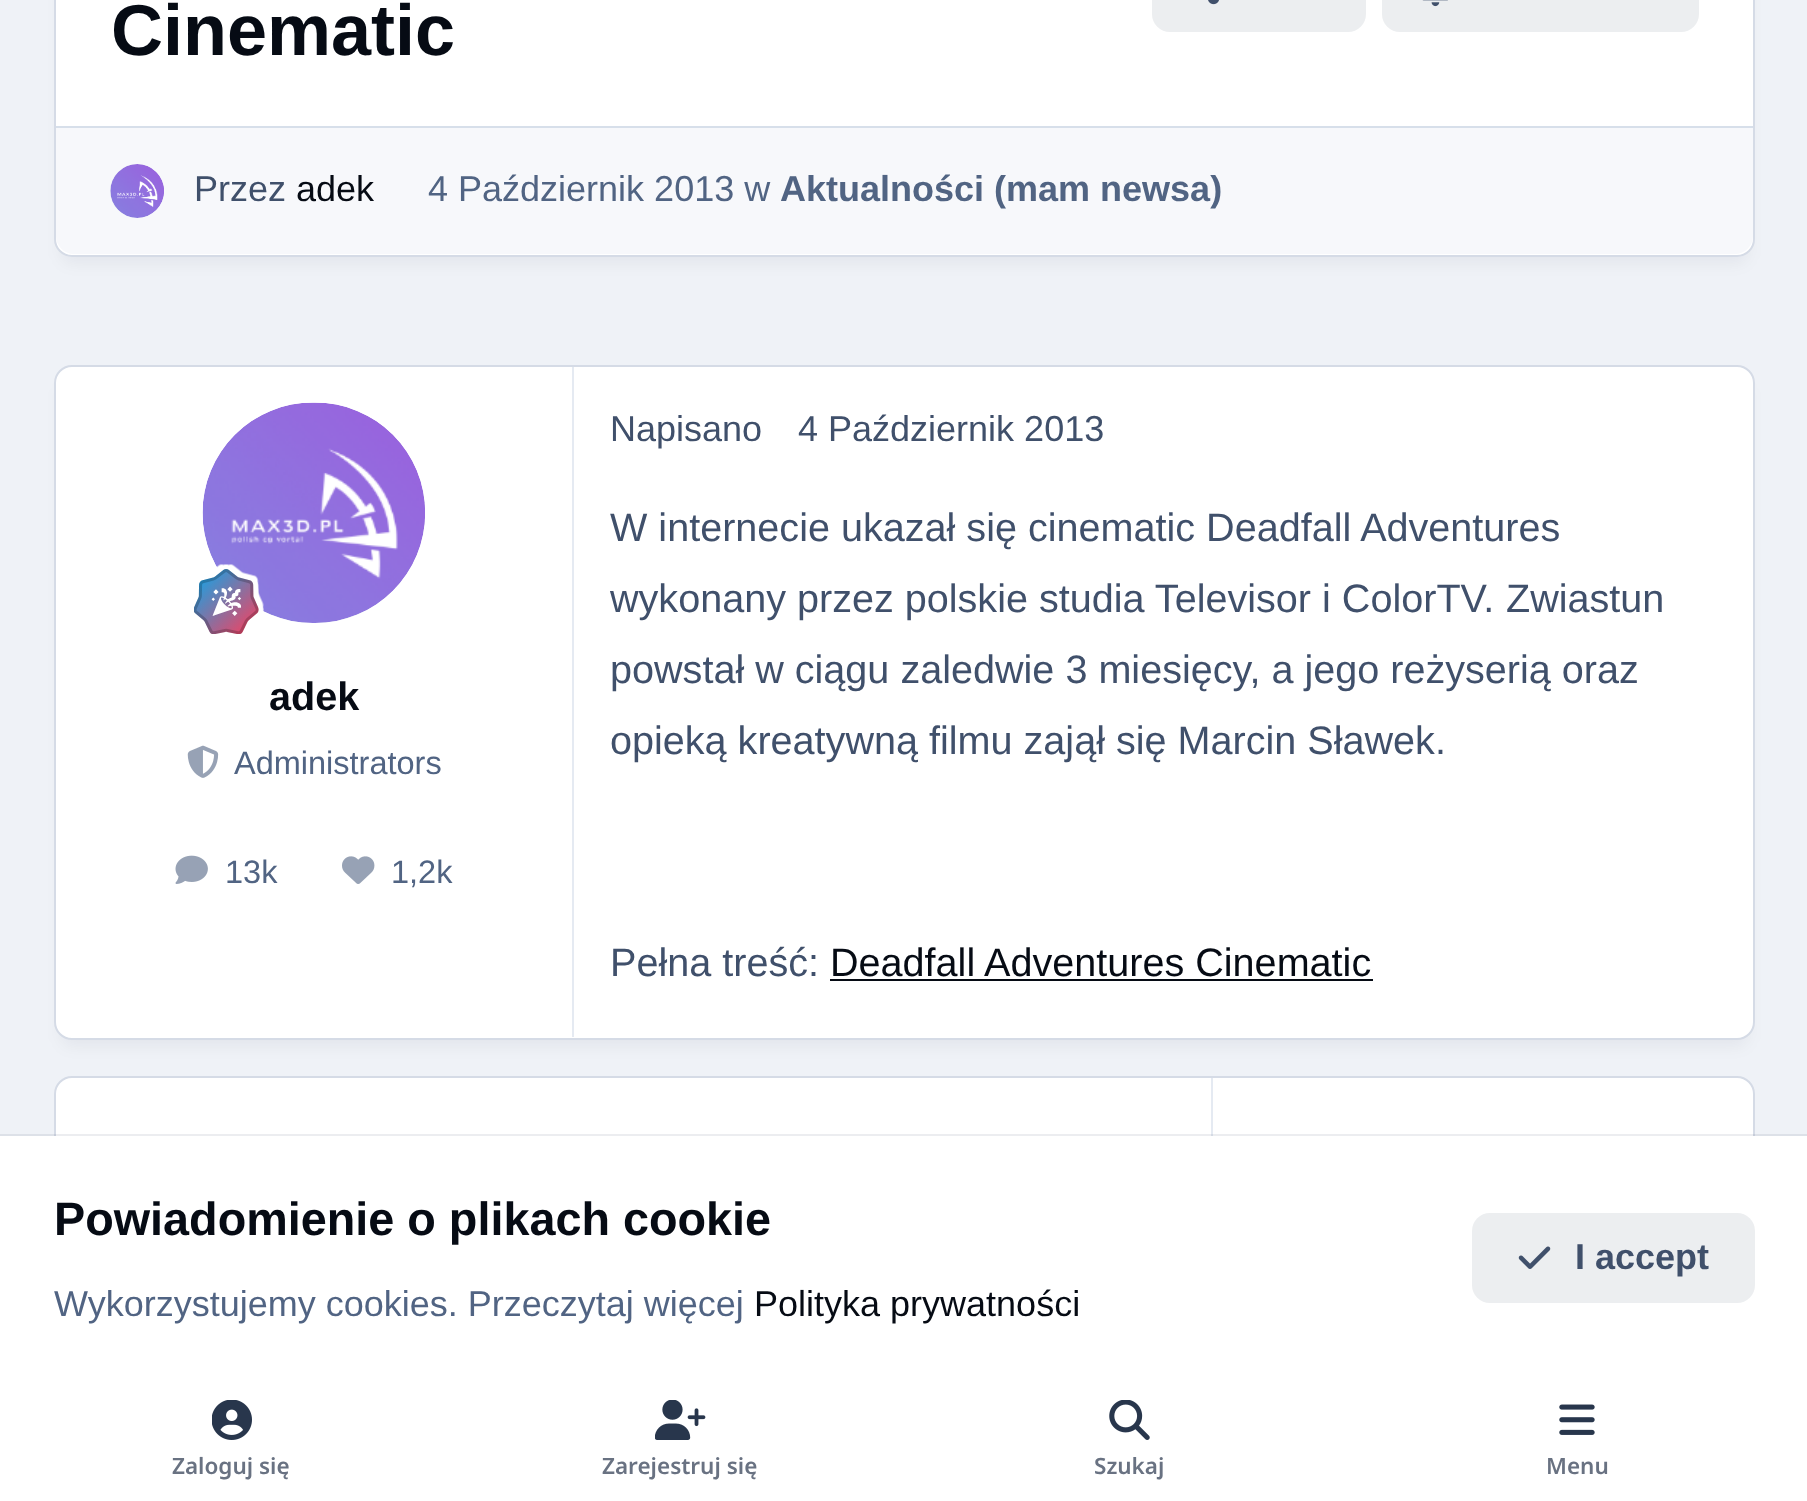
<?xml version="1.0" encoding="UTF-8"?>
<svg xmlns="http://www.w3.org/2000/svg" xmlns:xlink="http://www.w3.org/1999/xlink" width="1807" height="1501">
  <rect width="100%" height="100%" fill="#eff2f7" />
  <rect x="61" y="-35" width="1687" height="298" rx="11" fill="#01030a" fill-opacity="0.05" filter="blur(8px)" />
  <rect x="55" y="-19" width="1699" height="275" rx="17" fill="#ffffff" stroke="#d5dbe6" stroke-width="2" />
  <rect x="1152" y="-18" width="214" height="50" rx="18" fill="#eceef0" />
  <image x="1208" y="0" width="11" height="5" xlink:href="image1.png" />
  <rect x="1382" y="-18" width="317" height="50" rx="18" fill="#eceef0" />
  <image x="1422" y="0" width="26" height="7" xlink:href="image2.png" />
  <path d="M 56 126 h 1697 v 110 c 0 10 -8 18 -18 18 h -1661 c -10 0 -18 -8 -18 -18 z" fill="#f7f8fb" />
  <rect x="56" y="126" width="1697" height="2" fill="#d7dfea" />
  <circle cx="137" cy="191" r="27" fill="#e5eaf2" />
  <image x="110" y="164" width="54" height="54" xlink:href="image3.png" />
  <rect x="61" y="385" width="1687" height="661" rx="11" fill="#01030a" fill-opacity="0.05" filter="blur(8px)" />
  <rect x="55" y="366" width="1699" height="673" rx="17" fill="#ffffff" stroke="#d5dbe6" stroke-width="2" />
  <rect x="572" y="367" width="2" height="670" fill="#e5eaf2" />
  <rect x="203" y="403" width="222" height="220" rx="110" fill="#e5eaf2" />
  <image x="202" y="402" width="223" height="221" xlink:href="image4.png" />
  <image x="194" y="564" width="70" height="70" xlink:href="image5.png" />
  <image x="187" y="745" width="32" height="33" xlink:href="image6.png" />
  <image x="175" y="855" width="33" height="29" xlink:href="image7.png" />
  <image x="342" y="856" width="33" height="28" xlink:href="image8.png" />
  <rect x="830" y="979" width="543" height="2" fill="#060b14" />
  <rect x="55" y="1077" width="1699" height="421" rx="17" fill="#ffffff" stroke="#d5dbe6" stroke-width="2" />
  <path d="M 1213 1078 v 328 h -1157 v -2 h 1155 v -326 z" fill="#e5eaf2" />
  <rect y="1134" width="1807" height="2" fill="#40506b" fill-opacity="0.1" />
  <rect y="1136" width="1807" height="365" fill="#ffffff" />
  <rect x="1472" y="1213" width="283" height="90" rx="18" fill="#eceef0" />
  <image x="1518" y="1246" width="33" height="23" xlink:href="image9.png" />
  <image x="212" y="1400" width="40" height="40" xlink:href="image10.png" />
  <image x="655" y="1400" width="51" height="40" xlink:href="image11.png" />
  <image x="1109" y="1400" width="41" height="40" xlink:href="image12.png" />
  <image x="1559" y="1404" width="36" height="31" xlink:href="image13.png" />
  <text x="111" y="55" style="font-family: Liberation Sans; font-size: 72px; font-weight: bold; fill: #060b14">Cinematic</text>
  <text x="194" y="201" style="font-family: Liberation Sans; font-size: 36px; fill: #40506b">Przez</text>
  <text x="296" y="201" style="font-family: Liberation Sans; font-size: 36px; fill: #060b14">adek</text>
  <text x="428" y="201" style="font-family: Liberation Sans; font-size: 36px; fill: #516483">4 Październik 2013 w</text>
  <text x="780" y="201" style="font-family: Liberation Sans; font-size: 36px; font-weight: bold; fill: #516483">Aktualności (mam newsa)</text>
  <text x="269" y="710" style="font-family: Liberation Sans; font-size: 39.6px; font-weight: bold; fill: #060b14">adek</text>
  <text x="234" y="774" style="font-family: Liberation Sans; font-size: 32.5px; fill: #516483">Administrators</text>
  <text x="225" y="883" style="font-family: Liberation Sans; font-size: 32.5px; fill: #516483">13k</text>
  <text x="391" y="883" style="font-family: Liberation Sans; font-size: 32.5px; fill: #516483">1,2k</text>
  <text x="610" y="441" style="font-family: Liberation Sans; font-size: 36px; fill: #40506b">Napisano</text>
  <text x="798" y="441" style="font-family: Liberation Sans; font-size: 36px; fill: #40506b">4 Październik 2013</text>
  <text x="610" y="541" style="font-family: Liberation Sans; font-size: 39.6px; fill: #40506b">W internecie ukazał się cinematic Deadfall Adventures</text>
  <text x="610" y="612" style="font-family: Liberation Sans; font-size: 39.6px; fill: #40506b">wykonany przez polskie studia Televisor i ColorTV.</text>
  <text x="1506" y="612" style="font-family: Liberation Sans; font-size: 39.6px; fill: #40506b">Zwiastun</text>
  <text x="610" y="683" style="font-family: Liberation Sans; font-size: 39.6px; fill: #40506b">powstał w ciągu zaledwie 3 miesięcy, a jego reżyserią oraz</text>
  <text x="610" y="754" style="font-family: Liberation Sans; font-size: 39.6px; fill: #40506b">opieką kreatywną filmu zajął się Marcin Sławek.</text>
  <text x="610" y="976" style="font-family: Liberation Sans; font-size: 39.6px; fill: #40506b">Pełna treść:</text>
  <text x="830" y="976" style="font-family: Liberation Sans; font-size: 39.6px; fill: #060b14">Deadfall Adventures Cinematic</text>
  <text x="54" y="1235" style="font-family: Liberation Sans; font-size: 46.75px; font-weight: bold; fill: #060b14">Powiadomienie o plikach cookie</text>
  <text x="54" y="1316" style="font-family: Liberation Sans; font-size: 36px; fill: #516483">Wykorzystujemy cookies. Przeczytaj więcej</text>
  <text x="754" y="1316" style="font-family: Liberation Sans; font-size: 36px; fill: #060b14">Polityka prywatności</text>
  <text x="1575" y="1269" style="font-family: Liberation Sans; font-size: 36px; font-weight: bold; fill: #40506b">I accept</text>
  <text x="172" y="1474" style="font-family: Noto Sans; font-size: 22.5px; font-weight: 600; fill: #697282">Zaloguj się</text>
  <text x="602" y="1474" style="font-family: Noto Sans; font-size: 22.5px; font-weight: 600; fill: #697282">Zarejestruj się</text>
  <text x="1094" y="1474" style="font-family: Noto Sans; font-size: 22.5px; font-weight: 600; fill: #697282">Szukaj</text>
  <text x="1546" y="1474" style="font-family: Noto Sans; font-size: 22.5px; font-weight: 600; fill: #697282">Menu</text>
</svg>
